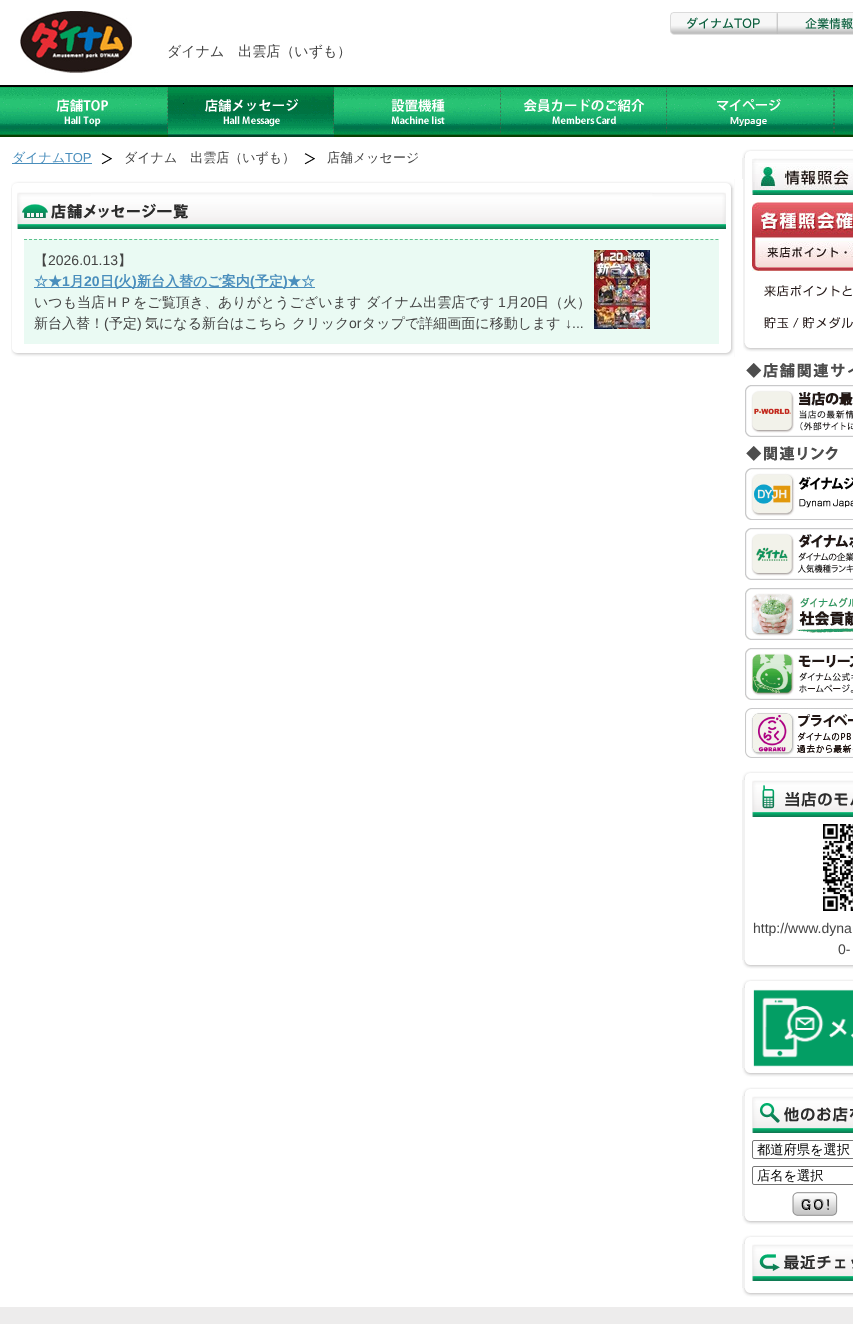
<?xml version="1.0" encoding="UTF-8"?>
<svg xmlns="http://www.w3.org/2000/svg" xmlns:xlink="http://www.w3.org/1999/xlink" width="853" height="1324">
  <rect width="100%" height="100%" fill="#ffffff" />
  <image x="20" y="11" width="112" height="62" xlink:href="image1.png" />
  <image x="670" y="12" width="106" height="23" xlink:href="image2.png" />
  <image x="776" y="12" width="77" height="23" xlink:href="image3.png" />
  <image x="0" y="85" width="853" height="2" xlink:href="image4.png" />
  <image x="0" y="87" width="168" height="50" xlink:href="image5.png" />
  <image x="168" y="87" width="166" height="50" xlink:href="image6.png" />
  <image x="334" y="87" width="167" height="50" xlink:href="image7.png" />
  <image x="501" y="87" width="166" height="50" xlink:href="image8.png" />
  <image x="667" y="87" width="167" height="50" xlink:href="image9.png" />
  <image x="834" y="87" width="19" height="50" xlink:href="image10.png" />
  <image x="101" y="153" width="11" height="12" xlink:href="image11.png" />
  <rect x="12" y="163" width="80" height="1" fill="#4a8ebc" />
  <image x="304" y="153" width="11" height="12" xlink:href="image11.png" />
  <rect x="742" y="158" width="3" height="185" fill="#f1f1f1" />
  <image x="11" y="179" width="732" height="178" xlink:href="image12.png" />
  <image x="11" y="179" width="723" height="9" xlink:href="image13.png" />
  <image x="17" y="192" width="709" height="37" xlink:href="image14.png" />
  <rect x="24" y="239" width="695" height="105" fill="#eafaf3" />
  <path d="M 24 239.5 h 695" fill="none" stroke="#5dc28d" stroke-dasharray="3 2.01" />
  <rect x="34" y="287" width="281" height="1" fill="#4a8ebc" />
  <image x="594" y="250" width="56" height="79" xlink:href="image15.png" />
  <image x="11" y="349" width="723" height="8" xlink:href="image16.png" />
  <image x="742" y="149" width="111" height="9" xlink:href="image17.png" />
  <image x="752" y="158" width="101" height="37" xlink:href="image18.png" />
  <image x="752" y="202" width="101" height="69" xlink:href="image19.png" />
  <image x="764" y="285" width="88" height="12" xlink:href="image20.png" />
  <image x="764" y="317" width="89" height="12" xlink:href="image21.png" />
  <image x="743" y="343" width="110" height="9" xlink:href="image22.png" />
  <image x="746" y="363" width="107" height="15" xlink:href="image23.png" />
  <image x="745" y="385" width="108" height="52" xlink:href="image24.png" />
  <image x="746" y="446" width="92" height="15" xlink:href="image25.png" />
  <image x="745" y="468" width="108" height="52" xlink:href="image26.png" />
  <image x="745" y="528" width="108" height="52" xlink:href="image27.png" />
  <image x="745" y="588" width="108" height="52" xlink:href="image28.png" />
  <image x="745" y="648" width="108" height="52" xlink:href="image29.png" />
  <image x="745" y="708" width="108" height="50" xlink:href="image30.png" />
  <rect x="742" y="780" width="3" height="180" fill="#f1f1f1" />
  <image x="742" y="771" width="111" height="9" xlink:href="image17.png" />
  <image x="752" y="780" width="101" height="37" xlink:href="image31.png" />
  <image x="823" y="824" width="30" height="87" xlink:href="image32.png" />
  <image x="742" y="960" width="111" height="9" xlink:href="image33.png" />
  <rect x="742" y="988" width="3" height="80" fill="#f1f1f1" />
  <image x="742" y="979" width="111" height="9" xlink:href="image17.png" />
  <image x="753" y="989" width="100" height="78" xlink:href="image34.png" />
  <image x="742" y="1068" width="111" height="9" xlink:href="image33.png" />
  <rect x="742" y="1096" width="3" height="120" fill="#f1f1f1" />
  <image x="742" y="1087" width="111" height="9" xlink:href="image17.png" />
  <image x="752" y="1096" width="101" height="37" xlink:href="image35.png" />
  <rect x="752.5" y="1140.5" width="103" height="18" rx="1.5" fill="none" stroke="#767676" />
  <rect x="752.5" y="1166.5" width="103" height="18" rx="1.5" fill="none" stroke="#767676" />
  <image x="792" y="1192" width="46" height="24" xlink:href="image36.png" />
  <image x="742" y="1216" width="111" height="9" xlink:href="image33.png" />
  <rect x="742" y="1244" width="3" height="44" fill="#f1f1f1" />
  <image x="742" y="1235" width="111" height="9" xlink:href="image17.png" />
  <image x="752" y="1244" width="101" height="37" xlink:href="image37.png" />
  <image x="742" y="1288" width="111" height="9" xlink:href="image33.png" />
  <rect y="1307" width="853" height="17" fill="#edecec" />
  <text x="167" y="56" style="font-family: WenQuanYi Zen Hei; font-size: 14px; font-weight: 500; fill: #444444">ダイナム　出雲店（いずも）</text>
  <text x="12" y="162" style="font-family: WenQuanYi Zen Hei; font-size: 13px; font-weight: 500; fill: #4a8ebc">ダイナム</text>
  <text x="65" y="162" style="font-family: Liberation Sans; font-size: 13px; fill: #4a8ebc">TOP</text>
  <text x="124" y="162" style="font-family: WenQuanYi Zen Hei; font-size: 13px; font-weight: 500; fill: #444444">ダイナム　出雲店（いずも）</text>
  <text x="327" y="162" style="font-family: WenQuanYi Zen Hei; font-size: 13px; font-weight: 500; fill: #444444">店舗メッセージ</text>
  <text x="34" y="265" style="font-family: WenQuanYi Zen Hei; font-size: 14px; font-weight: 500; fill: #444444">【</text>
  <text x="48" y="265" style="font-family: Liberation Sans; font-size: 14px; fill: #444444">2026.01.13</text>
  <text x="118" y="265" style="font-family: WenQuanYi Zen Hei; font-size: 14px; font-weight: 500; fill: #444444">】</text>
  <text x="34" y="286" style="font-family: WenQuanYi Zen Hei; font-size: 14px; font-weight: bold; fill: #4a8ebc">☆★</text>
  <text x="62" y="286" style="font-family: Liberation Sans; font-size: 14px; font-weight: bold; fill: #4a8ebc">1</text>
  <text x="70" y="286" style="font-family: WenQuanYi Zen Hei; font-size: 14px; font-weight: bold; fill: #4a8ebc">月</text>
  <text x="84" y="286" style="font-family: Liberation Sans; font-size: 14px; font-weight: bold; fill: #4a8ebc">20</text>
  <text x="100" y="286" style="font-family: WenQuanYi Zen Hei; font-size: 14px; font-weight: bold; fill: #4a8ebc">日</text>
  <text x="114" y="286" style="font-family: Liberation Sans; font-size: 14px; font-weight: bold; fill: #4a8ebc">(</text>
  <text x="118" y="286" style="font-family: WenQuanYi Zen Hei; font-size: 14px; font-weight: bold; fill: #4a8ebc">火</text>
  <text x="132" y="286" style="font-family: Liberation Sans; font-size: 14px; font-weight: bold; fill: #4a8ebc">)</text>
  <text x="137" y="286" style="font-family: WenQuanYi Zen Hei; font-size: 14px; font-weight: bold; fill: #4a8ebc">新台入替のご案内</text>
  <text x="250" y="286" style="font-family: Liberation Sans; font-size: 14px; font-weight: bold; fill: #4a8ebc">(</text>
  <text x="255" y="286" style="font-family: WenQuanYi Zen Hei; font-size: 14px; font-weight: bold; fill: #4a8ebc">予定</text>
  <text x="283" y="286" style="font-family: Liberation Sans; font-size: 14px; font-weight: bold; fill: #4a8ebc">)</text>
  <text x="287" y="286" style="font-family: WenQuanYi Zen Hei; font-size: 14px; font-weight: bold; fill: #4a8ebc">★☆</text>
  <text x="34" y="307" style="font-family: WenQuanYi Zen Hei; font-size: 14px; font-weight: 500; fill: #444444">いつも当店ＨＰをご覧頂き、ありがとうございます</text>
  <text x="366" y="307" style="font-family: WenQuanYi Zen Hei; font-size: 14px; font-weight: 500; fill: #444444">ダイナム出雲店です</text>
  <text x="498" y="307" style="font-family: Liberation Sans; font-size: 14px; fill: #444444">1</text>
  <text x="506" y="307" style="font-family: WenQuanYi Zen Hei; font-size: 14px; font-weight: 500; fill: #444444">月</text>
  <text x="520" y="307" style="font-family: Liberation Sans; font-size: 14px; fill: #444444">20</text>
  <text x="535" y="307" style="font-family: WenQuanYi Zen Hei; font-size: 14px; font-weight: 500; fill: #444444">日（火）</text>
  <text x="34" y="328" style="font-family: WenQuanYi Zen Hei; font-size: 14px; font-weight: 500; fill: #444444">新台入替！</text>
  <text x="104" y="328" style="font-family: Liberation Sans; font-size: 14px; fill: #444444">(</text>
  <text x="109" y="328" style="font-family: WenQuanYi Zen Hei; font-size: 14px; font-weight: 500; fill: #444444">予定</text>
  <text x="137" y="328" style="font-family: Liberation Sans; font-size: 14px; fill: #444444">)</text>
  <text x="145" y="328" style="font-family: WenQuanYi Zen Hei; font-size: 14px; font-weight: 500; fill: #444444">気になる新台はこちら</text>
  <text x="292" y="328" style="font-family: WenQuanYi Zen Hei; font-size: 14px; font-weight: 500; fill: #444444">クリック</text>
  <text x="349" y="328" style="font-family: Liberation Sans; font-size: 14px; fill: #444444">or</text>
  <text x="362" y="328" style="font-family: WenQuanYi Zen Hei; font-size: 14px; font-weight: 500; fill: #444444">タップで詳細画面に移動します</text>
  <text x="565" y="328" style="font-family: Liberation Sans; font-size: 14px; fill: #444444">↓...</text>
  <text x="753" y="933" style="font-family: Liberation Sans; font-size: 14px; fill: #444444">http://www.dyna</text>
  <text x="838" y="954" style="font-family: Liberation Sans; font-size: 14px; fill: #444444">0-</text>
  <text x="757" y="1154" style="font-family: WenQuanYi Zen Hei; font-size: 13.25px; font-weight: 500; fill: #000000">都道府県を選択</text>
  <text x="757" y="1180" style="font-family: WenQuanYi Zen Hei; font-size: 13.25px; font-weight: 500; fill: #000000">店名を選択</text>
</svg>
